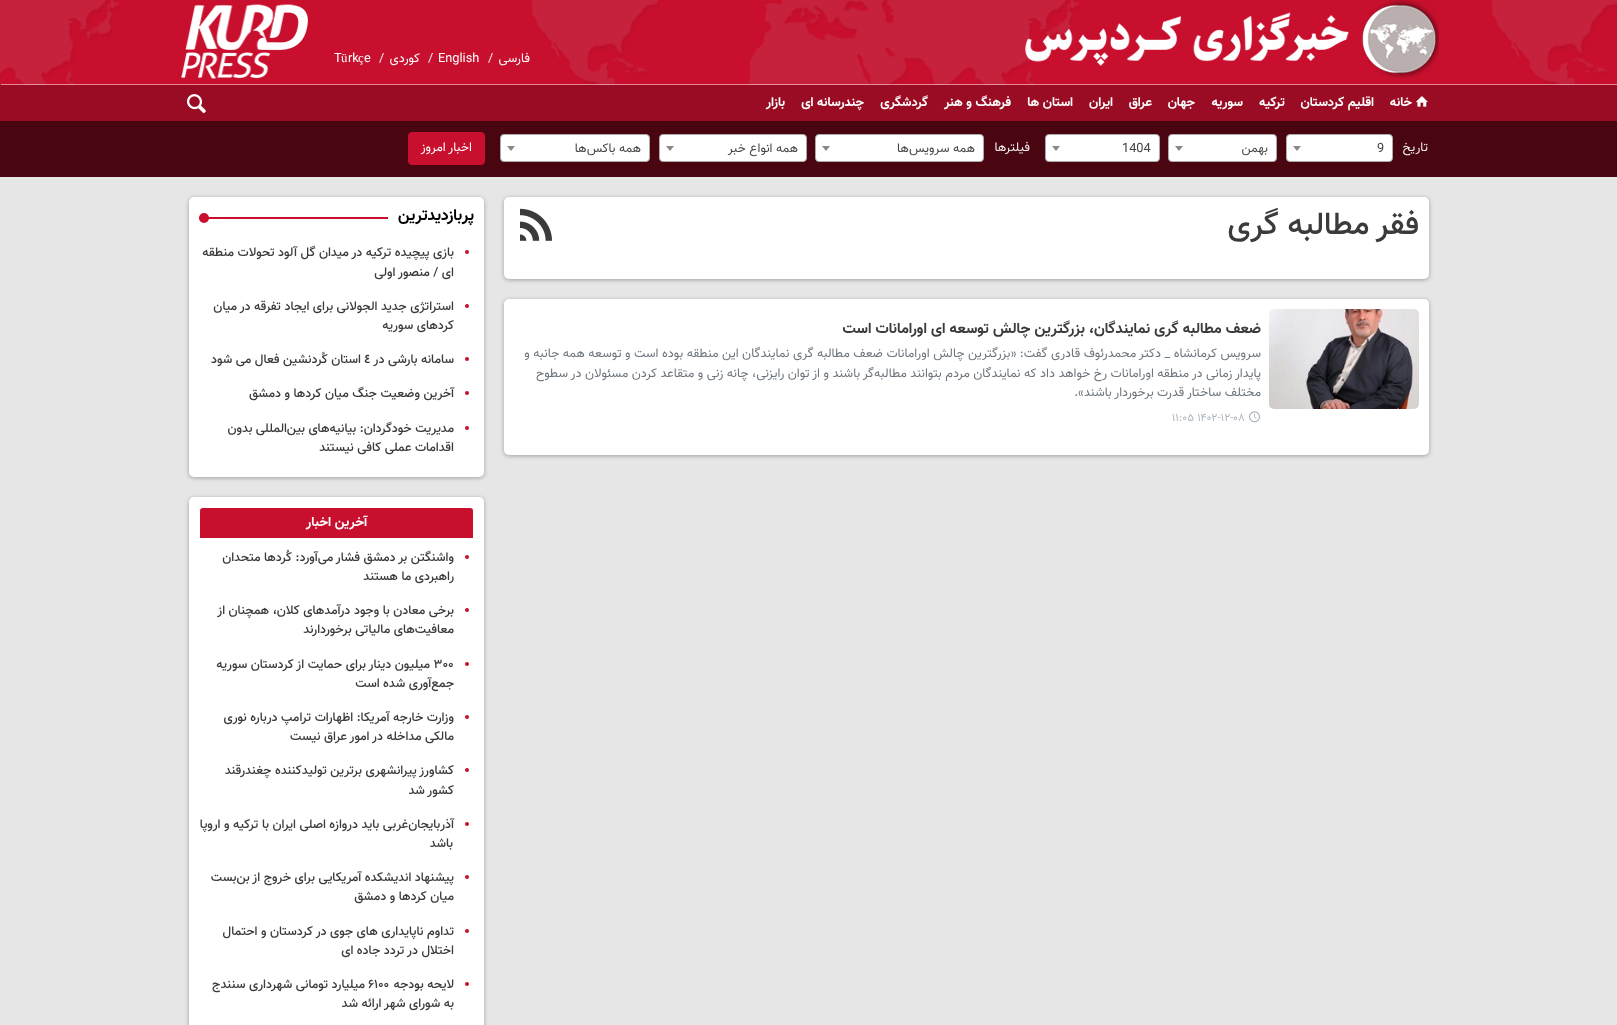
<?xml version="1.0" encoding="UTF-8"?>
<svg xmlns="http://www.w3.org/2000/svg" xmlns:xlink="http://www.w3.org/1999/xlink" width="1617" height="1025">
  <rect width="100%" height="100%" fill="#e6e6e6" />
  <rect width="1617" height="85" fill="#c8102e" />
  <image x="0" y="0" width="1617" height="85" xlink:href="image1.png" />
  <image x="1025" y="0" width="414" height="79" xlink:href="image2.png" />
  <image x="181" y="4" width="127" height="75" xlink:href="image3.png" />
  <rect y="85" width="1617" height="36" fill="#990c23" />
  <rect x="1" y="84" width="1616" height="1" fill="#ffffff" fill-opacity="0.5" />
  <image x="1416" y="96" width="12" height="11" xlink:href="image4.png" />
  <image x="187" y="94" width="19" height="20" xlink:href="image5.png" />
  <rect y="121" width="1617" height="56" fill="#490611" />
  <rect x="1286.5" y="134.5" width="106" height="27" rx="3.5" fill="#ffffff" stroke="#aaaaaa" />
  <path d="M 1293 146 h 8 l -4 5 z" fill="#888888" />
  <rect x="1168.5" y="134.5" width="108" height="27" rx="3.5" fill="#ffffff" stroke="#aaaaaa" />
  <path d="M 1175 146 h 8 l -4 5 z" fill="#888888" />
  <rect x="1045.5" y="134.5" width="114" height="27" rx="3.5" fill="#ffffff" stroke="#aaaaaa" />
  <path d="M 1052 146 h 8 l -4 5 z" fill="#888888" />
  <rect x="815.5" y="134.5" width="168" height="27" rx="3.5" fill="#ffffff" stroke="#aaaaaa" />
  <path d="M 822 146 h 8 l -4 5 z" fill="#888888" />
  <rect x="659.5" y="134.5" width="147" height="27" rx="3.5" fill="#ffffff" stroke="#aaaaaa" />
  <path d="M 666 146 h 8 l -4 5 z" fill="#888888" />
  <rect x="500.5" y="134.5" width="149" height="27" rx="3.5" fill="#ffffff" stroke="#aaaaaa" />
  <path d="M 507 146 h 8 l -4 5 z" fill="#888888" />
  <rect x="408.5" y="132.5" width="76" height="32" rx="3.5" fill="#c8102e" stroke="#c8102e" />
  <rect x="504" y="198" width="925" height="82" rx="5" fill="#000000" fill-opacity="0.3" filter="blur(2px)" />
  <rect x="504" y="197" width="925" height="82" rx="5" fill="#ffffff" />
  <image x="520" y="208" width="32" height="33" xlink:href="image6.png" />
  <rect x="504" y="300" width="925" height="156" rx="5" fill="#000000" fill-opacity="0.3" filter="blur(2px)" />
  <rect x="504" y="299" width="925" height="156" rx="5" fill="#ffffff" />
  <image x="1269" y="309" width="150" height="100" xlink:href="image7.png" />
  <image x="1249" y="411" width="11" height="12" xlink:href="image8.png" />
  <rect x="189" y="198" width="295" height="280" rx="5" fill="#000000" fill-opacity="0.3" filter="blur(2px)" />
  <rect x="189" y="197" width="295" height="280" rx="5" fill="#ffffff" />
  <rect x="199" y="217" width="189" height="2" fill="#c8102e" />
  <circle cx="204" cy="218" r="5" fill="#c8102e" />
  <circle cx="467" cy="252" r="2" fill="#c8102e" />
  <circle cx="467" cy="306" r="2" fill="#c8102e" />
  <circle cx="467" cy="359" r="2" fill="#c8102e" />
  <circle cx="467" cy="393" r="2" fill="#c8102e" />
  <circle cx="467" cy="428" r="2" fill="#c8102e" />
  <rect x="189" y="498" width="295" height="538" rx="5" fill="#000000" fill-opacity="0.3" filter="blur(2px)" />
  <rect x="189" y="497" width="295" height="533" rx="5" fill="#ffffff" />
  <path d="M 203 507.5 h 267 c 2 0 3.5 1.5 3.5 3.5 v 27.5 h -274 v -27.5 c 0 -2 1.5 -3.5 3.5 -3.5 z" fill="#c8102e" stroke="#ffffff" />
  <circle cx="467" cy="557" r="2" fill="#c8102e" />
  <circle cx="467" cy="610" r="2" fill="#c8102e" />
  <circle cx="467" cy="664" r="2" fill="#c8102e" />
  <circle cx="467" cy="717" r="2" fill="#c8102e" />
  <circle cx="467" cy="770" r="2" fill="#c8102e" />
  <circle cx="467" cy="824" r="2" fill="#c8102e" />
  <circle cx="467" cy="877" r="2" fill="#c8102e" />
  <circle cx="467" cy="931" r="2" fill="#c8102e" />
  <circle cx="467" cy="984" r="2" fill="#c8102e" />
  <text x="530" y="62" style="font-family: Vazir; font-size: 12.8px; direction: rtl; fill: #ffffff">فارسی</text>
  <text x="488" y="62" style="font-family: Vazir; font-size: 12.8px; fill: #eeeeee">/</text>
  <text x="438" y="62" style="font-family: Vazir; font-size: 12.8px; fill: #ffffff">English</text>
  <text x="428" y="62" style="font-family: Vazir; font-size: 12.8px; fill: #eeeeee">/</text>
  <text x="420" y="62" style="font-family: Vazir; font-size: 12.8px; direction: rtl; fill: #ffffff">کوردی</text>
  <text x="379" y="62" style="font-family: Vazir; font-size: 12.8px; fill: #eeeeee">/</text>
  <text x="364" y="62" style="font-family: Vazir; font-size: 12.8px; fill: #ffffff">e</text>
  <text x="348" y="62" style="font-family: Vazir; font-size: 12.8px; fill: #ffffff">rk</text>
  <text x="358" y="62" style="font-family: Liberation Serif; font-size: 12.8px; fill: #ffffff">ç</text>
  <text x="341" y="62" style="font-family: Liberation Serif; font-size: 12.8px; fill: #ffffff">ü</text>
  <text x="334" y="62" style="font-family: Vazir; font-size: 12.8px; fill: #ffffff">T</text>
  <text x="1412" y="106" style="font-family: Vazir; font-size: 13px; font-weight: bold; direction: rtl; fill: #ffffff">خانه</text>
  <text x="1374" y="106" style="font-family: Vazir; font-size: 13px; font-weight: bold; direction: rtl; fill: #ffffff">اقلیم کردستان</text>
  <text x="1285" y="106" style="font-family: Vazir; font-size: 13px; font-weight: bold; direction: rtl; fill: #ffffff">ترکیه</text>
  <text x="1243" y="106" style="font-family: Vazir; font-size: 13px; font-weight: bold; direction: rtl; fill: #ffffff">سوریه</text>
  <text x="1195" y="106" style="font-family: Vazir; font-size: 13px; font-weight: bold; direction: rtl; fill: #ffffff">جهان</text>
  <text x="1152" y="106" style="font-family: Vazir; font-size: 13px; font-weight: bold; direction: rtl; fill: #ffffff">عراق</text>
  <text x="1113" y="106" style="font-family: Vazir; font-size: 13px; font-weight: bold; direction: rtl; fill: #ffffff">ایران</text>
  <text x="1073" y="106" style="font-family: Vazir; font-size: 13px; font-weight: bold; direction: rtl; fill: #ffffff">استان ها</text>
  <text x="1011" y="106" style="font-family: Vazir; font-size: 13px; font-weight: bold; direction: rtl; fill: #ffffff">فرهنگ و هنر</text>
  <text x="928" y="106" style="font-family: Vazir; font-size: 13px; font-weight: bold; direction: rtl; fill: #ffffff">گردشگری</text>
  <text x="864" y="106" style="font-family: Vazir; font-size: 13px; font-weight: bold; direction: rtl; fill: #ffffff">چندرسانه ای</text>
  <text x="785" y="106" style="font-family: Vazir; font-size: 13px; font-weight: bold; direction: rtl; fill: #ffffff">بازار</text>
  <text x="1428" y="151" style="font-family: Vazir; font-size: 12.8px; direction: rtl; fill: #eeeeee">تاریخ</text>
  <text x="1377" y="152" style="font-family: Vazir; font-size: 12.8px; fill: #444444">9</text>
  <text x="1268" y="152" style="font-family: Vazir; font-size: 12.8px; direction: rtl; fill: #444444">بهمن</text>
  <text x="1122" y="152" style="font-family: Vazir; font-size: 12.8px; fill: #444444">1404</text>
  <text x="1030" y="151" style="font-family: Vazir; font-size: 12.8px; direction: rtl; fill: #eeeeee">فیلترها</text>
  <text x="975" y="152" style="font-family: Vazir; font-size: 12.8px; direction: rtl; fill: #444444">همه سرویس‌ها</text>
  <text x="798" y="152" style="font-family: Vazir; font-size: 12.8px; direction: rtl; fill: #444444">همه انواع خبر</text>
  <text x="641" y="152" style="font-family: Vazir; font-size: 12.8px; direction: rtl; fill: #444444">همه باکس‌ها</text>
  <text x="472" y="151" style="font-family: Vazir; font-size: 12.8px; direction: rtl; fill: #ffffff">اخبار امروز</text>
  <text x="1419" y="234" style="font-family: Vazir; font-size: 32px; font-weight: 500; direction: rtl; fill: #3b3b3b">فقر مطالبه گری</text>
  <text x="1261" y="333" style="font-family: Vazir; font-size: 15.2px; font-weight: bold; direction: rtl; fill: #3b3b3b">ضعف مطالبه گری نمایندگان، بزرگترین چالش توسعه ای اورامانات است</text>
  <text x="1261" y="357" style="font-family: Vazir; font-size: 12.8px; direction: rtl; fill: #6c757d">سرویس کرمانشاه _ دکتر محمدرئوف قادری گفت: «بزرگترین چالش اورامانات ضعف مطالبه گری نمایندگان این منطقه بوده است و توسعه همه جانبه و</text>
  <text x="1261" y="377" style="font-family: Vazir; font-size: 12.8px; direction: rtl; fill: #6c757d">پایدار زمانی در منطقه اورامانات رخ خواهد داد که نمایندگان مردم بتوانند مطالبه‌گر باشند و از توان رایزنی، چانه زنی و متقاعد کردن مسئولان در سطوح</text>
  <text x="1261" y="396" style="font-family: Vazir; font-size: 12.8px; direction: rtl; fill: #6c757d">مختلف ساختار قدرت برخوردار باشند».</text>
  <text x="1172" y="421" style="font-family: Vazir; font-size: 11.25px; fill: #adb5bd">۱۱:۰۵ ۱۴۰۲-۱۲-۰۸</text>
  <text x="474" y="220" style="font-family: Vazir; font-size: 16px; font-weight: bold; direction: rtl; fill: #000000">پربازدیدترین</text>
  <text x="454" y="256" style="font-family: Vazir; font-size: 12.8px; font-weight: 500; direction: rtl; fill: #3b3b3b">بازی پیچیده ترکیه در میدان گل آلود تحولات منطقه</text>
  <text x="454" y="276" style="font-family: Vazir; font-size: 12.8px; font-weight: 500; direction: rtl; fill: #3b3b3b">ای / منصور اولی</text>
  <text x="454" y="310" style="font-family: Vazir; font-size: 12.8px; font-weight: 500; direction: rtl; fill: #3b3b3b">استراتژی جدید الجولانی برای ایجاد تفرقه در میان</text>
  <text x="454" y="329" style="font-family: Vazir; font-size: 12.8px; font-weight: 500; direction: rtl; fill: #3b3b3b">کردهای سوریه</text>
  <text x="454" y="363" style="font-family: Vazir; font-size: 12.8px; font-weight: 500; direction: rtl; fill: #3b3b3b">سامانه بارشی در</text>
  <text x="364" y="363" style="font-family: Vazir; font-size: 12.8px; font-weight: 500; fill: #3b3b3b">٤</text>
  <text x="361" y="363" style="font-family: Vazir; font-size: 12.8px; font-weight: 500; direction: rtl; fill: #3b3b3b">استان کُردنشین فعال می شود</text>
  <text x="454" y="397" style="font-family: Vazir; font-size: 12.8px; font-weight: 500; direction: rtl; fill: #3b3b3b">آخرین وضعیت جنگ میان کردها و دمشق</text>
  <text x="454" y="432" style="font-family: Vazir; font-size: 12.8px; font-weight: 500; direction: rtl; fill: #3b3b3b">مدیریت خودگردان: بیانیه‌های بین‌المللی بدون</text>
  <text x="454" y="451" style="font-family: Vazir; font-size: 12.8px; font-weight: 500; direction: rtl; fill: #3b3b3b">اقدامات عملی کافی نیستند</text>
  <text x="367" y="526" style="font-family: Vazir; font-size: 13.5px; font-weight: bold; direction: rtl; fill: #ffffff">آخرین اخبار</text>
  <text x="454" y="561" style="font-family: Vazir; font-size: 12.8px; font-weight: 500; direction: rtl; fill: #3b3b3b">واشنگتن بر دمشق فشار می‌آورد: کُردها متحدان</text>
  <text x="454" y="580" style="font-family: Vazir; font-size: 12.8px; font-weight: 500; direction: rtl; fill: #3b3b3b">راهبردی ما هستند</text>
  <text x="454" y="614" style="font-family: Vazir; font-size: 12.8px; font-weight: 500; direction: rtl; fill: #3b3b3b">برخی معادن با وجود درآمدهای کلان، همچنان از</text>
  <text x="454" y="633" style="font-family: Vazir; font-size: 12.8px; font-weight: 500; direction: rtl; fill: #3b3b3b">معافیت‌های مالیاتی برخوردارند</text>
  <text x="434" y="668" style="font-family: Vazir; font-size: 12.8px; font-weight: 500; fill: #3b3b3b">۳۰۰</text>
  <text x="430" y="668" style="font-family: Vazir; font-size: 12.8px; font-weight: 500; direction: rtl; fill: #3b3b3b">میلیون دینار برای حمایت از کردستان سوریه</text>
  <text x="454" y="687" style="font-family: Vazir; font-size: 12.8px; font-weight: 500; direction: rtl; fill: #3b3b3b">جمع‌آوری شده است</text>
  <text x="454" y="721" style="font-family: Vazir; font-size: 12.8px; font-weight: 500; direction: rtl; fill: #3b3b3b">وزارت خارجه آمریکا: اظهارات ترامپ درباره نوری</text>
  <text x="454" y="740" style="font-family: Vazir; font-size: 12.8px; font-weight: 500; direction: rtl; fill: #3b3b3b">مالکی مداخله در امور عراق نیست</text>
  <text x="454" y="774" style="font-family: Vazir; font-size: 12.8px; font-weight: 500; direction: rtl; fill: #3b3b3b">کشاورز پیرانشهری برترین تولیدکننده چغندرقند</text>
  <text x="454" y="794" style="font-family: Vazir; font-size: 12.8px; font-weight: 500; direction: rtl; fill: #3b3b3b">کشور شد</text>
  <text x="454" y="828" style="font-family: Vazir; font-size: 12.8px; font-weight: 500; direction: rtl; fill: #3b3b3b">آذربایجان‌غربی باید دروازه اصلی ایران با ترکیه و اروپا</text>
  <text x="453" y="847" style="font-family: Vazir; font-size: 12.8px; font-weight: 500; direction: rtl; fill: #3b3b3b">باشد</text>
  <text x="454" y="881" style="font-family: Vazir; font-size: 12.8px; font-weight: 500; direction: rtl; fill: #3b3b3b">پیشنهاد اندیشکده آمریکایی برای خروج از بن‌بست</text>
  <text x="454" y="900" style="font-family: Vazir; font-size: 12.8px; font-weight: 500; direction: rtl; fill: #3b3b3b">میان کردها و دمشق</text>
  <text x="454" y="935" style="font-family: Vazir; font-size: 12.8px; font-weight: 500; direction: rtl; fill: #3b3b3b">تداوم ناپایداری های جوی در کردستان و احتمال</text>
  <text x="454" y="954" style="font-family: Vazir; font-size: 12.8px; font-weight: 500; direction: rtl; fill: #3b3b3b">اختلال در تردد جاده ای</text>
  <text x="454" y="988" style="font-family: Vazir; font-size: 12.8px; font-weight: 500; direction: rtl; fill: #3b3b3b">لایحه بودجه</text>
  <text x="368" y="988" style="font-family: Vazir; font-size: 12.8px; font-weight: 500; fill: #3b3b3b">۶۱۰۰</text>
  <text x="365" y="988" style="font-family: Vazir; font-size: 12.8px; font-weight: 500; direction: rtl; fill: #3b3b3b">میلیارد تومانی شهرداری سنندج</text>
  <text x="454" y="1007" style="font-family: Vazir; font-size: 12.8px; font-weight: 500; direction: rtl; fill: #3b3b3b">به شورای شهر ارائه شد</text>
</svg>
